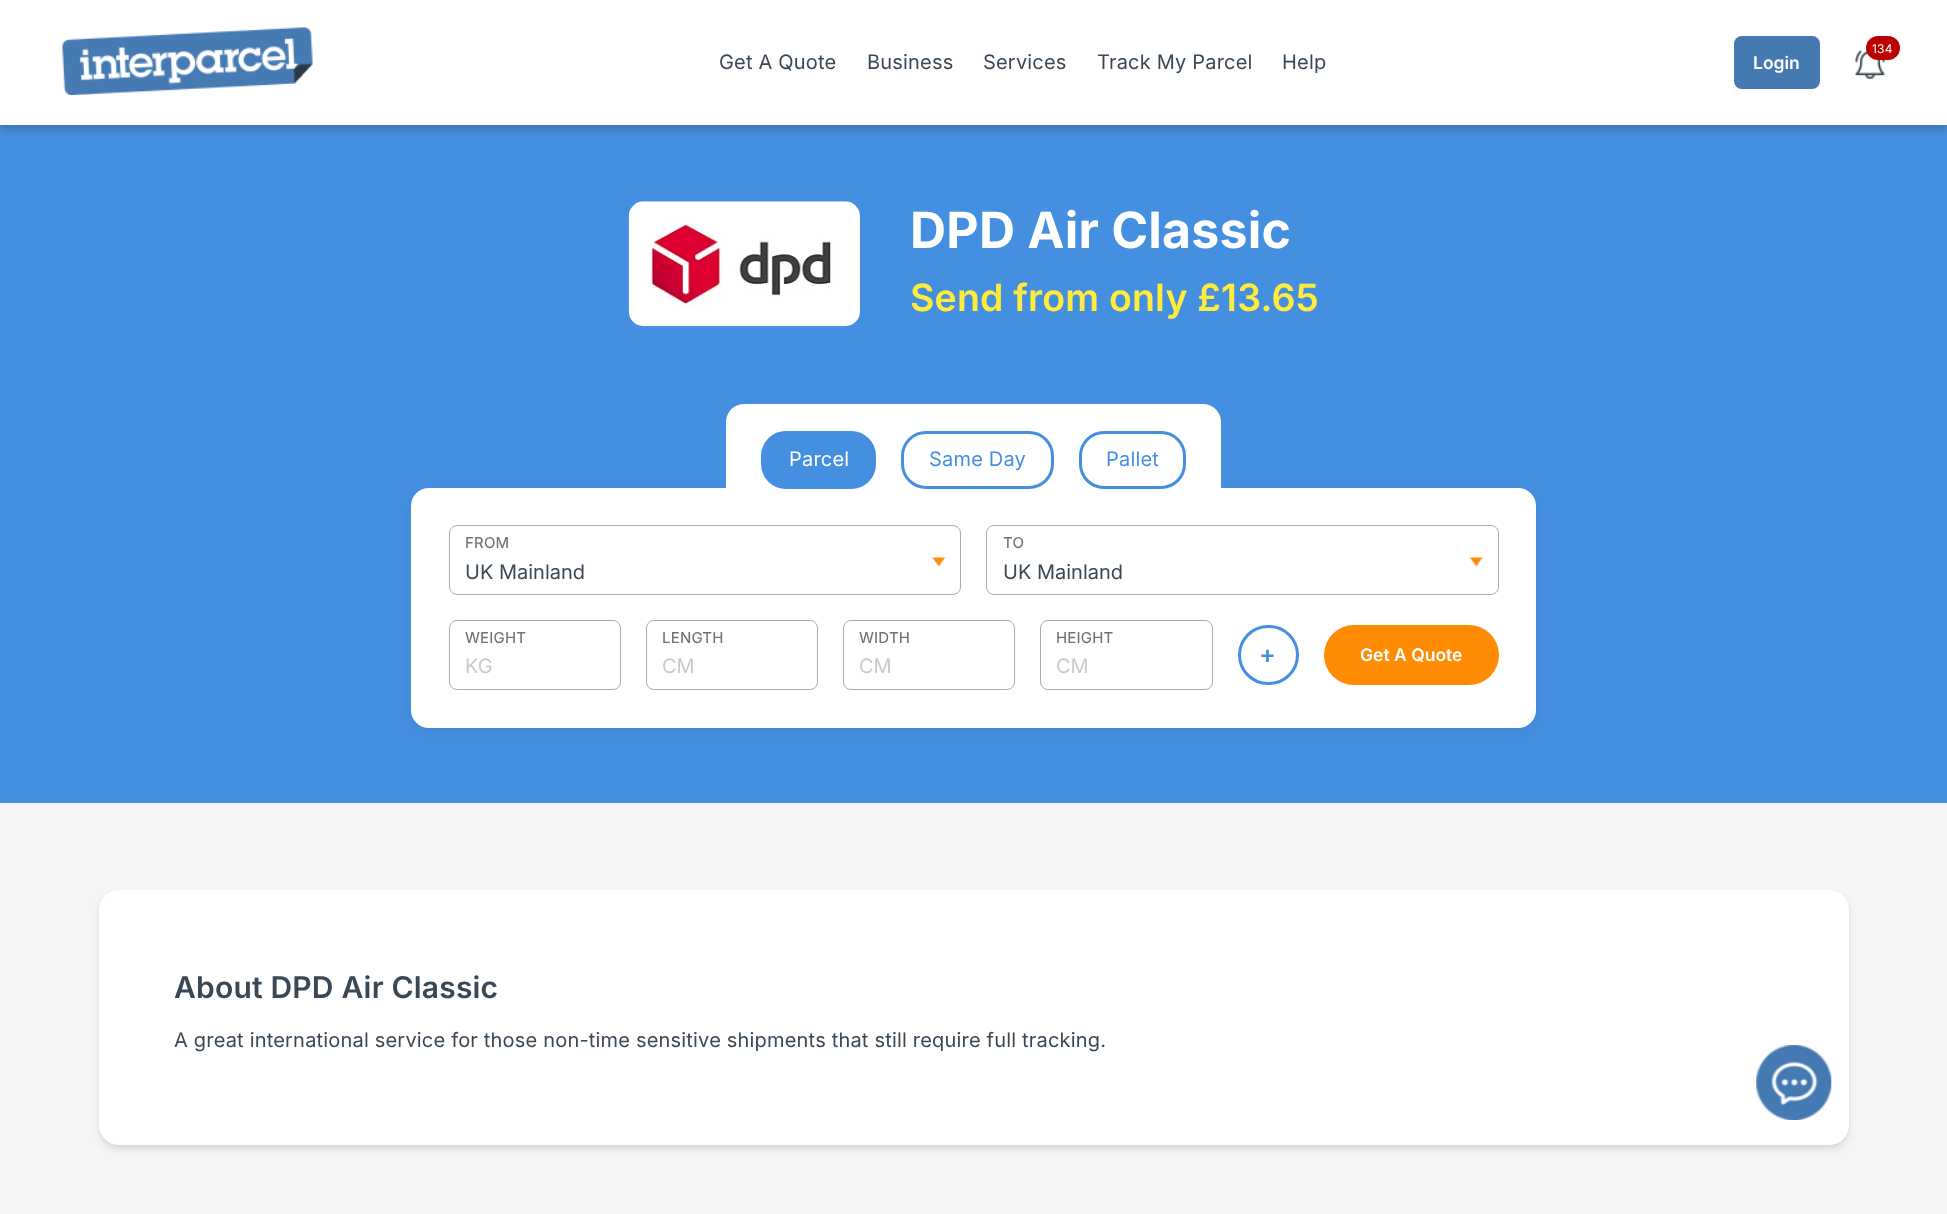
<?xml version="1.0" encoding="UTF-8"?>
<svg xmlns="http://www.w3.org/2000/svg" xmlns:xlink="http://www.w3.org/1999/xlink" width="1947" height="1214">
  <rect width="100%" height="100%" fill="#f4f5f6" />
  <rect y="125" width="1947" height="678" fill="#458fe1" />
  <rect y="4" width="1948" height="125" fill="#000000" fill-opacity="0.2" filter="blur(4px)" />
  <rect width="1947" height="125" fill="#ffffff" />
  <image x="62" y="27" width="251" height="68" xlink:href="image1.png" />
  <image x="1855" y="50" width="30" height="29" xlink:href="image2.png" />
  <rect x="1866" y="36" width="34" height="24" rx="12" fill="#bb0000" />
  <rect x="1734" y="36" width="86" height="53" rx="8" fill="#4579b2" />
  <image x="628" y="201" width="232" height="126" xlink:href="image3.png" />
  <rect x="411" y="493" width="1125" height="240" rx="18" fill="#000000" fill-opacity="0.05" filter="blur(7.5px)" />
  <rect x="411" y="488" width="1125" height="240" rx="18" fill="#ffffff" />
  <path d="M 744 404 h 459 c 10 0 18 8 18 18 v 67 h -495 v -67 c 0 -10 8 -18 18 -18 z" fill="#ffffff" />
  <rect x="762.5" y="432.5" width="112" height="55" rx="23.5" fill="#458fe1" stroke="#458fe1" stroke-width="3" />
  <rect x="902.5" y="432.5" width="150" height="55" rx="23.5" fill="none" stroke="#458fe1" stroke-width="3" />
  <rect x="1080.5" y="432.5" width="104" height="55" rx="23.5" fill="none" stroke="#458fe1" stroke-width="3" />
  <image x="932" y="557" width="13" height="10" xlink:href="image4.png" />
  <rect x="449.5" y="525.5" width="511" height="69" rx="7.5" fill="none" stroke="#adaeaf" />
  <image x="1470" y="557" width="13" height="10" xlink:href="image5.png" />
  <rect x="986.5" y="525.5" width="512" height="69" rx="7.5" fill="none" stroke="#adaeaf" />
  <rect x="449.5" y="620.5" width="171" height="69" rx="7.5" fill="none" stroke="#adaeaf" />
  <rect x="646.5" y="620.5" width="171" height="69" rx="7.5" fill="none" stroke="#adaeaf" />
  <rect x="843.5" y="620.5" width="171" height="69" rx="7.5" fill="none" stroke="#adaeaf" />
  <rect x="1040.5" y="620.5" width="172" height="69" rx="7.5" fill="none" stroke="#adaeaf" />
  <rect x="1239.5" y="626.5" width="58" height="57" rx="28.5" fill="none" stroke="#458fe1" stroke-width="3" />
  <rect x="1324" y="625" width="175" height="60" rx="30" fill="#ff8b03" />
  <rect x="100" y="894" width="1748" height="252" rx="19" fill="#000000" fill-opacity="0.06" filter="blur(2.5px)" />
  <rect x="100" y="896" width="1748" height="253" rx="19" fill="#000000" fill-opacity="0.1" filter="blur(4px)" />
  <rect x="99" y="890" width="1750" height="255" rx="20" fill="#ffffff" />
  <image x="1756" y="1045" width="76" height="75" xlink:href="image6.png" />
  <text x="1872" y="53" style="font-family: Inter; font-size: 12px; letter-spacing: 0.19px; fill: #ffffff">134</text>
  <text x="719" y="69" style="font-family: Inter; font-size: 20px; letter-spacing: 0.19px; fill: #3a4856">Get A Quote</text>
  <text x="867" y="69" style="font-family: Inter; font-size: 20px; letter-spacing: 0.19px; fill: #3a4856">Business</text>
  <text x="983" y="69" style="font-family: Inter; font-size: 20px; letter-spacing: 0.19px; fill: #3a4856">Services</text>
  <text x="1097" y="69" style="font-family: Inter; font-size: 20px; letter-spacing: 0.19px; fill: #3a4856">Track My Parcel</text>
  <text x="1282" y="69" style="font-family: Inter; font-size: 20px; letter-spacing: 0.19px; fill: #3a4856">Help</text>
  <text x="1753" y="69" style="font-family: Inter; font-size: 17.5px; font-weight: 600; fill: #ffffff">Login</text>
  <text x="910" y="248" style="font-family: Inter; font-size: 50px; font-weight: bold; letter-spacing: 0.19px; fill: #ffffff">DPD Air Classic</text>
  <text x="910" y="311" style="font-family: Inter; font-size: 37.5px; font-weight: 600; letter-spacing: 0.19px; fill: #ffeb3b">Send from only £13.65</text>
  <text x="789" y="466" style="font-family: Inter; font-size: 20px; letter-spacing: 0.19px; fill: #ffffff">Parcel</text>
  <text x="929" y="466" style="font-family: Inter; font-size: 20px; letter-spacing: 0.19px; fill: #458fe1">Same Day</text>
  <text x="1106" y="466" style="font-family: Inter; font-size: 20px; letter-spacing: 0.19px; fill: #458fe1">Pallet</text>
  <text x="465" y="548" style="font-family: 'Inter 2'; font-size: 15px; letter-spacing: 0.19px; fill: #707173">FROM</text>
  <text x="465" y="579" style="font-family: Inter; font-size: 20px; fill: #3a4856">UK Mainland</text>
  <text x="1003" y="548" style="font-family: 'Inter 2'; font-size: 15px; letter-spacing: 0.19px; fill: #707173">TO</text>
  <text x="1003" y="579" style="font-family: Inter; font-size: 20px; fill: #3a4856">UK Mainland</text>
  <text x="465" y="643" style="font-family: 'Inter 2'; font-size: 15px; letter-spacing: 0.19px; fill: #707173">WEIGHT</text>
  <text x="465" y="673" style="font-family: Inter; font-size: 20px; fill: #c8c9cb">KG</text>
  <text x="662" y="643" style="font-family: 'Inter 2'; font-size: 15px; letter-spacing: 0.19px; fill: #707173">LENGTH</text>
  <text x="662" y="673" style="font-family: Inter; font-size: 20px; fill: #c8c9cb">CM</text>
  <text x="859" y="643" style="font-family: 'Inter 2'; font-size: 15px; letter-spacing: 0.19px; fill: #707173">WIDTH</text>
  <text x="859" y="673" style="font-family: Inter; font-size: 20px; fill: #c8c9cb">CM</text>
  <text x="1056" y="643" style="font-family: 'Inter 2'; font-size: 15px; letter-spacing: 0.19px; fill: #707173">HEIGHT</text>
  <text x="1056" y="673" style="font-family: Inter; font-size: 20px; fill: #c8c9cb">CM</text>
  <text x="1259" y="663" style="font-family: Inter; font-size: 25px; font-weight: 600; fill: #458fe1">+</text>
  <text x="1360" y="661" style="font-family: Inter; font-size: 17.5px; font-weight: 600; fill: #ffffff">Get A Quote</text>
  <text x="174" y="998" style="font-family: Inter; font-size: 30px; font-weight: 600; letter-spacing: 0.19px; fill: #3a4856">About DPD Air Classic</text>
  <text x="174" y="1047" style="font-family: Inter; font-size: 20px; letter-spacing: 0.19px; fill: #3a4856">A great international service for those non-time sensitive shipments that still require full tracking.</text>
</svg>
